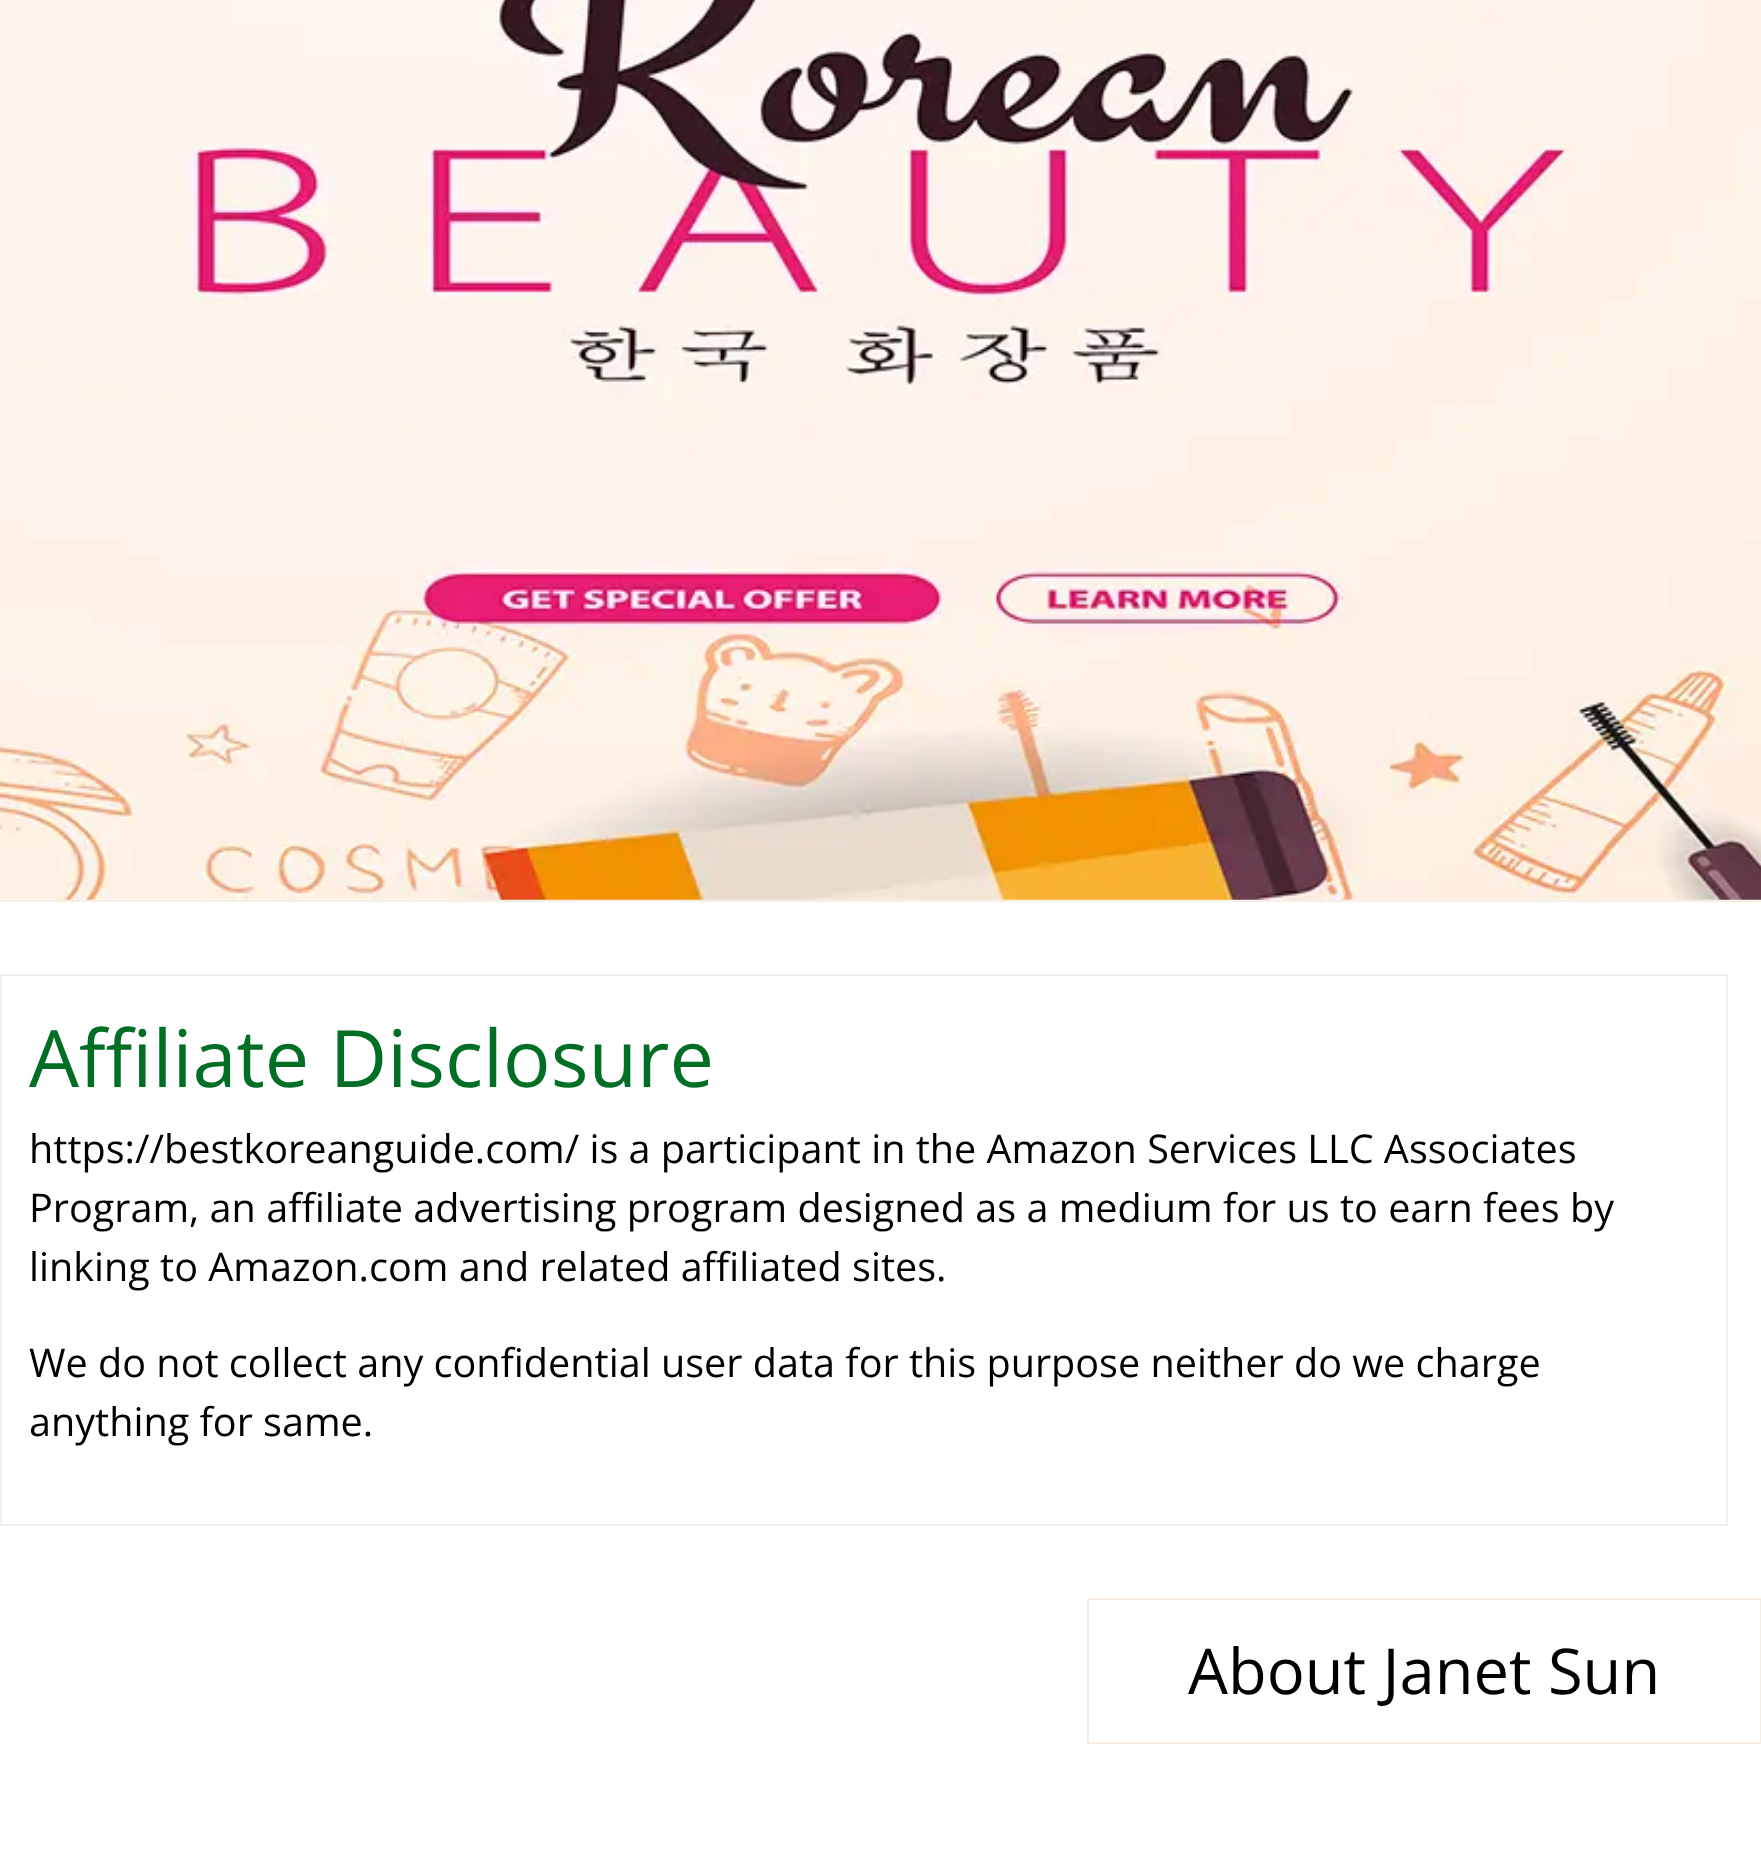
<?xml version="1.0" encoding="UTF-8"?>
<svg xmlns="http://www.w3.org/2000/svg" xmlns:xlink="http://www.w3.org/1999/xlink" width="1761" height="1850">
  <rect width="100%" height="100%" fill="#ffffff" />
  <image x="0" y="0" width="1761" height="900" xlink:href="image1.png" />
  <rect y="900" width="1761" height="2" fill="#f7efe3" />
  <rect x="1" y="975" width="1726" height="550" fill="none" stroke="#f1f1f1" stroke-width="2" />
  <rect x="1088" y="1599" width="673" height="144" fill="none" stroke="#f7efe3" stroke-width="2" />
  <text x="29" y="1087" style="font-family: Open Sans; font-size: 79.25px; fill: #006e25">Affiliate Disclosure</text>
  <text x="29" y="1163" style="font-family: Open Sans; font-size: 39.6px; fill: #000000">https://bestkoreanguide.com/ is a participant in the Amazon Services LLC Associates</text>
  <text x="29" y="1222" style="font-family: Open Sans; font-size: 39.6px; fill: #000000">Program, an affiliate advertising program designed as a medium for us to earn fees by</text>
  <text x="29" y="1281" style="font-family: Open Sans; font-size: 39.6px; fill: #000000">linking to Amazon.com and related affiliated sites.</text>
  <text x="29" y="1377" style="font-family: Open Sans; font-size: 39.6px; fill: #000000">We do not collect any confidential user data for this purpose neither do we charge</text>
  <text x="29" y="1436" style="font-family: Open Sans; font-size: 39.6px; fill: #000000">anything for same.</text>
  <text x="1188" y="1694" style="font-family: Open Sans; font-size: 63.25px; fill: #000000">About Janet Sun</text>
</svg>
